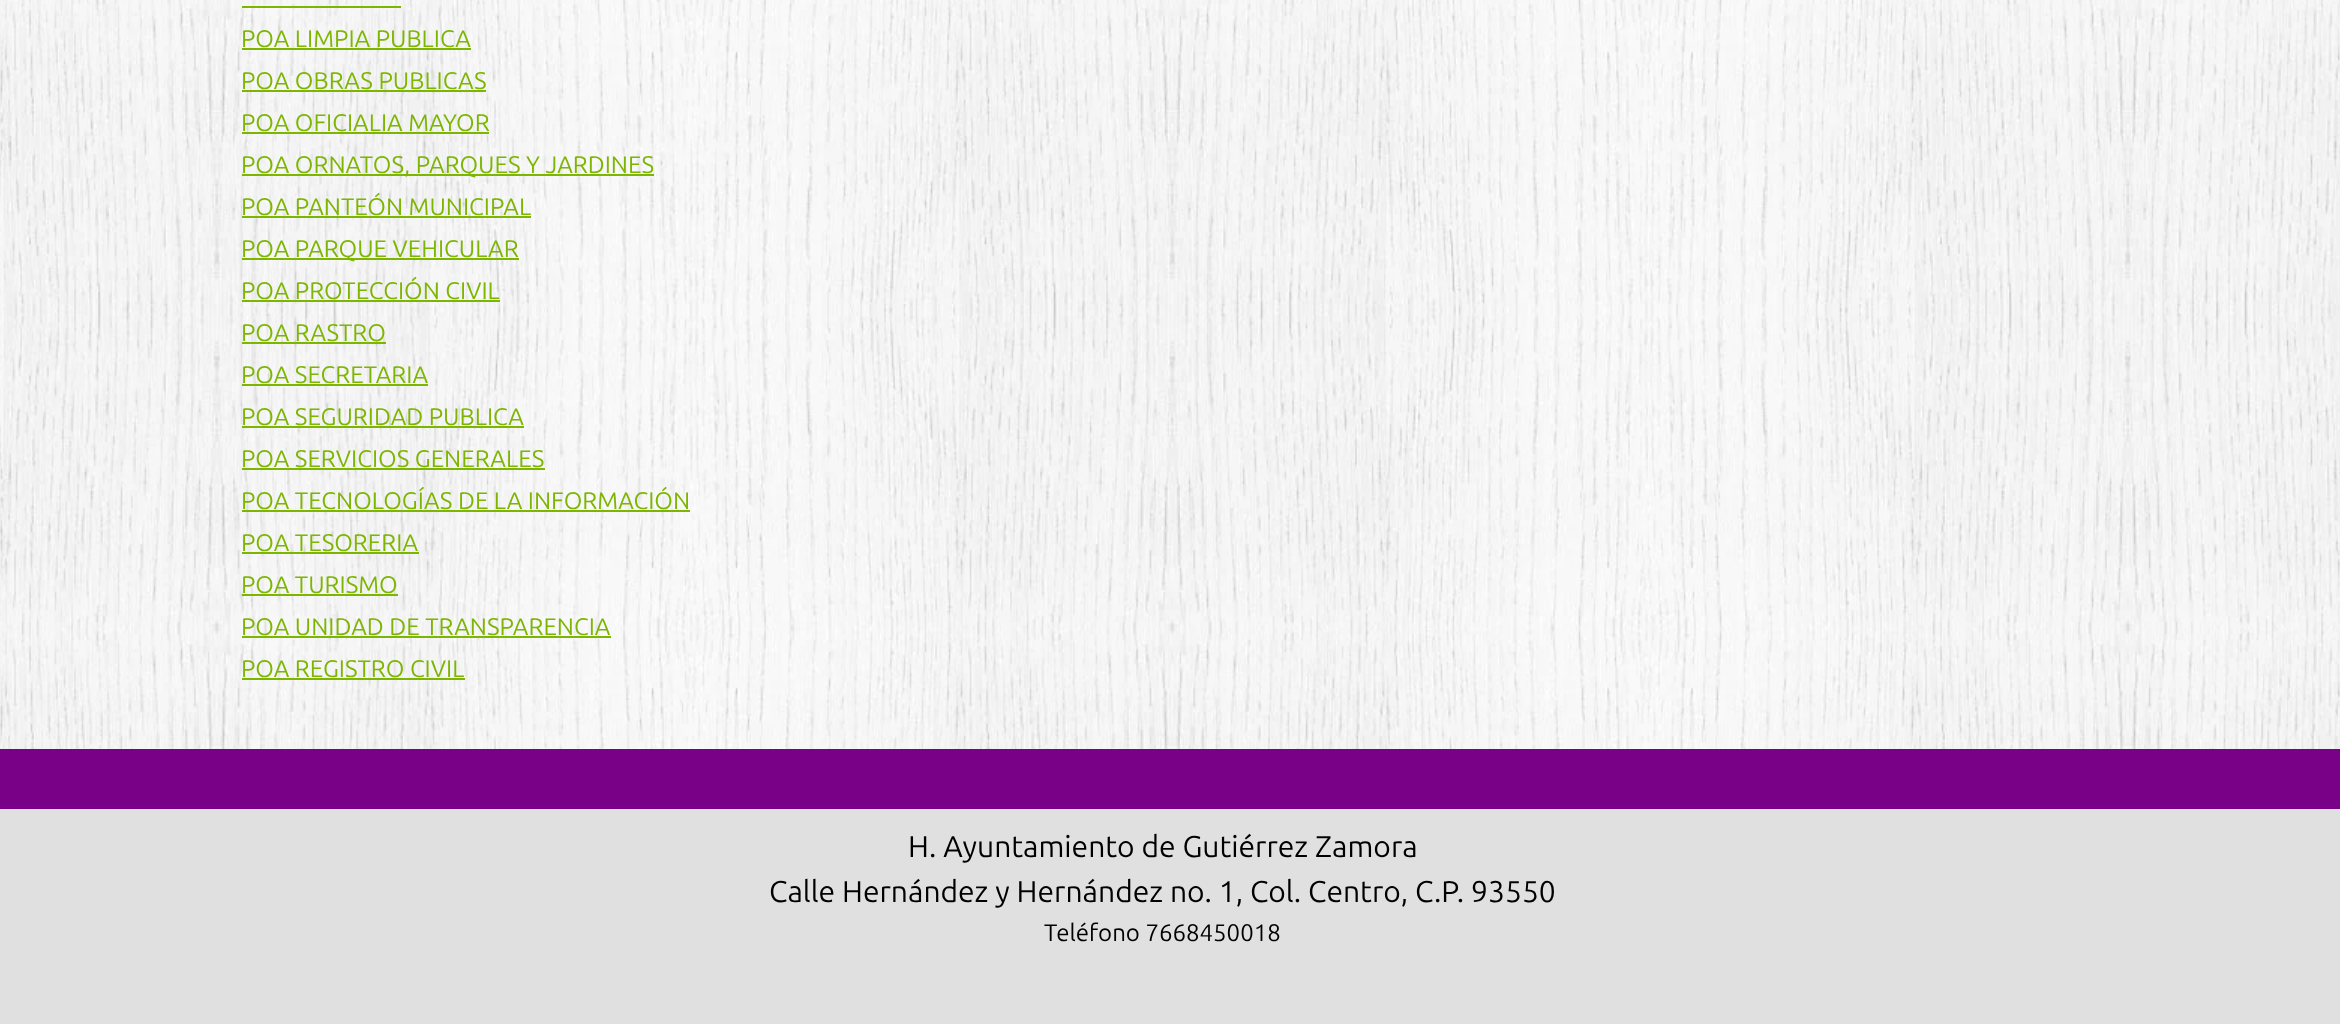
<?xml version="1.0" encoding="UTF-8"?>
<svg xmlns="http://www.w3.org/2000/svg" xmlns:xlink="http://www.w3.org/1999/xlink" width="2340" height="1024">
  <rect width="100%" height="100%" fill="#ffffff" />
  <image x="0" y="0" width="2340" height="749" xlink:href="image1.png" />
  <rect x="242" y="6" width="159" height="2" fill="#7db600" />
  <rect x="242" y="48" width="229" height="2" fill="#7db600" />
  <rect x="242" y="90" width="244" height="2" fill="#7db600" />
  <rect x="242" y="132" width="247" height="2" fill="#7db600" />
  <rect x="242" y="174" width="412" height="2" fill="#7db600" />
  <rect x="242" y="216" width="289" height="2" fill="#7db600" />
  <rect x="242" y="258" width="277" height="2" fill="#7db600" />
  <rect x="242" y="300" width="258" height="2" fill="#7db600" />
  <rect x="242" y="342" width="144" height="2" fill="#7db600" />
  <rect x="242" y="384" width="186" height="2" fill="#7db600" />
  <rect x="242" y="426" width="282" height="2" fill="#7db600" />
  <rect x="242" y="468" width="303" height="2" fill="#7db600" />
  <rect x="242" y="510" width="448" height="2" fill="#7db600" />
  <rect x="242" y="552" width="177" height="2" fill="#7db600" />
  <rect x="242" y="594" width="156" height="2" fill="#7db600" />
  <rect x="242" y="636" width="369" height="2" fill="#7db600" />
  <rect x="242" y="678" width="223" height="2" fill="#7db600" />
  <rect y="749" width="2340" height="60" fill="#790187" />
  <rect y="809" width="2340" height="215" fill="#e0e0e0" />
  <text x="241" y="47" style="font-family: Ubuntu; font-size: 24px; fill: #7db600">POA LIMPIA PUBLICA</text>
  <text x="241" y="89" style="font-family: Ubuntu; font-size: 24px; fill: #7db600">POA OBRAS PUBLICAS</text>
  <text x="241" y="131" style="font-family: Ubuntu; font-size: 24px; fill: #7db600">POA OFICIALIA MAYOR</text>
  <text x="241" y="173" style="font-family: Ubuntu; font-size: 24px; fill: #7db600">POA ORNATOS, PARQUES Y JARDINES</text>
  <text x="241" y="215" style="font-family: Ubuntu; font-size: 24px; fill: #7db600">POA PANTEÓN MUNICIPAL</text>
  <text x="241" y="257" style="font-family: Ubuntu; font-size: 24px; fill: #7db600">POA PARQUE VEHICULAR</text>
  <text x="241" y="299" style="font-family: Ubuntu; font-size: 24px; fill: #7db600">POA PROTECCIÓN CIVIL</text>
  <text x="241" y="341" style="font-family: Ubuntu; font-size: 24px; fill: #7db600">POA RASTRO</text>
  <text x="241" y="383" style="font-family: Ubuntu; font-size: 24px; fill: #7db600">POA SECRETARIA</text>
  <text x="241" y="425" style="font-family: Ubuntu; font-size: 24px; fill: #7db600">POA SEGURIDAD PUBLICA</text>
  <text x="241" y="467" style="font-family: Ubuntu; font-size: 24px; fill: #7db600">POA SERVICIOS GENERALES</text>
  <text x="241" y="509" style="font-family: Ubuntu; font-size: 24px; fill: #7db600">POA TECNOLOGÍAS DE LA INFORMACIÓN</text>
  <text x="241" y="551" style="font-family: Ubuntu; font-size: 24px; fill: #7db600">POA TESORERIA</text>
  <text x="241" y="593" style="font-family: Ubuntu; font-size: 24px; fill: #7db600">POA TURISMO</text>
  <text x="241" y="635" style="font-family: Ubuntu; font-size: 24px; fill: #7db600">POA UNIDAD DE TRANSPARENCIA</text>
  <text x="241" y="677" style="font-family: Ubuntu; font-size: 24px; fill: #7db600">POA REGISTRO CIVIL</text>
  <text x="908" y="857" style="font-family: Ubuntu; font-size: 30px; fill: #000000">H. Ayuntamiento de Gutiérrez Zamora</text>
  <text x="769" y="902" style="font-family: Ubuntu; font-size: 30px; fill: #000000">Calle Hernández y Hernández no. 1, Col. Centro, C.P. 93550</text>
  <text x="1044" y="941" style="font-family: Ubuntu; font-size: 24px; fill: #000000">Teléfono 7668450018</text>
</svg>
